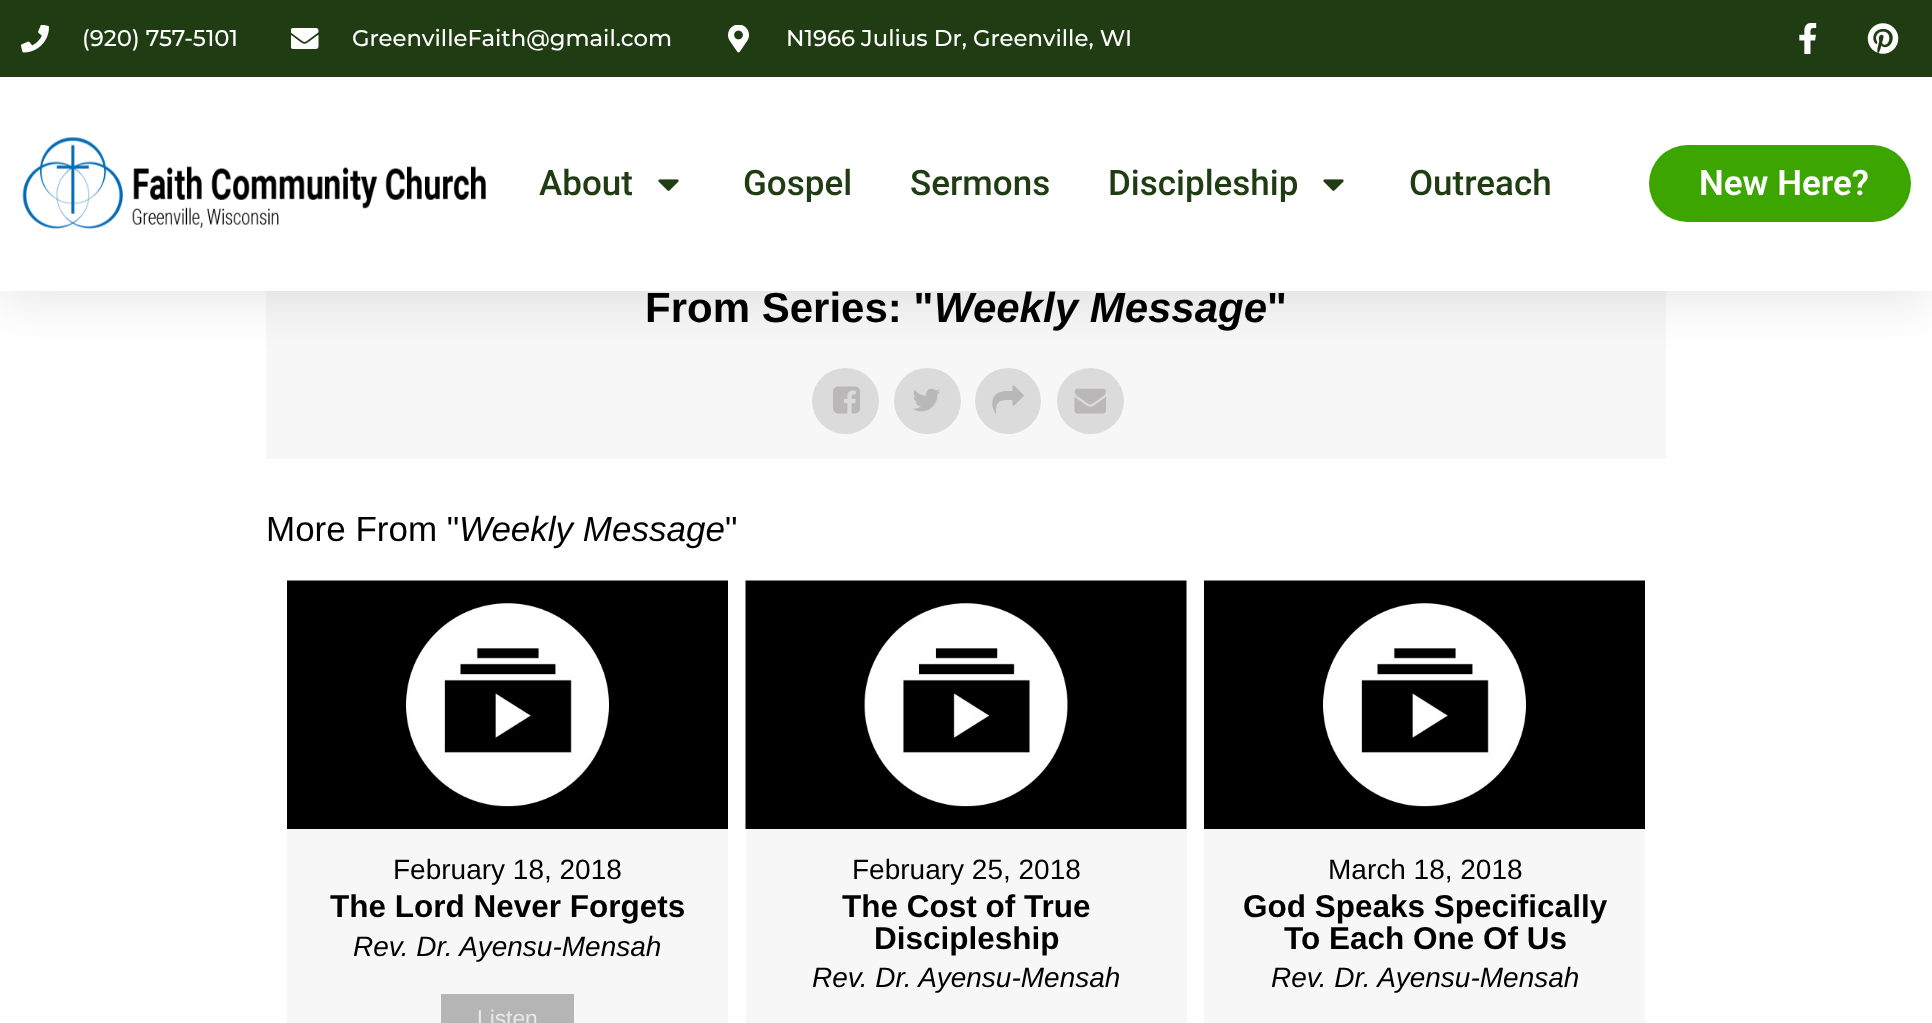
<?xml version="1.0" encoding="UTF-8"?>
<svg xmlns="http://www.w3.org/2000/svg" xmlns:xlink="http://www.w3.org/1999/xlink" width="1932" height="1023">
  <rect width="100%" height="100%" fill="#ffffff" />
  <rect x="266" y="291" width="1400" height="168" fill="#f7f7f7" />
  <rect x="812" y="368" width="67" height="66" rx="33" fill="#dcdbdb" />
  <rect x="894" y="368" width="67" height="66" rx="33" fill="#dcdbdb" />
  <circle cx="1008" cy="401" r="33" fill="#dcdbdb" />
  <rect x="1057" y="368" width="67" height="66" rx="33" fill="#dcdbdb" />
  <rect y="9" width="1932" height="290" fill="#000000" fill-opacity="0.1" filter="blur(26px)" />
  <rect width="1932" height="77" fill="#1f3c13" />
  <image x="21" y="25" width="28" height="28" xlink:href="image1.png" />
  <image x="291" y="28" width="28" height="21" xlink:href="image2.png" />
  <image x="728" y="25" width="21" height="28" xlink:href="image3.png" />
  <image x="1799" y="23" width="18" height="31" xlink:href="image4.png" />
  <image x="1867" y="23" width="32" height="31" xlink:href="image5.png" />
  <rect y="77" width="1932" height="214" fill="#ffffff" />
  <image x="22" y="137" width="464" height="92" xlink:href="image6.png" />
  <image x="658" y="179" width="21" height="12" xlink:href="image7.png" />
  <image x="1323" y="179" width="21" height="12" xlink:href="image7.png" />
  <rect x="1649" y="145" width="262" height="77" rx="38.5" fill="#3da500" />
  <image x="833" y="386" width="27" height="28" xlink:href="image8.png" />
  <image x="913" y="388" width="27" height="24" xlink:href="image9.png" />
  <image x="992" y="385" width="32" height="29" xlink:href="image10.png" />
  <image x="1074" y="388" width="32" height="26" xlink:href="image11.png" />
  <rect x="287" y="829" width="441" height="194" fill="#f7f7f7" />
  <image x="287" y="580" width="441" height="249" xlink:href="image12.png" />
  <rect x="441" y="994" width="133" height="29" fill="#b6b5b5" />
  <rect x="746" y="581" width="441" height="442" fill="#f7f7f7" />
  <image x="745" y="580" width="442" height="249" xlink:href="image13.png" />
  <rect x="1204" y="829" width="441" height="194" fill="#f7f7f7" />
  <image x="1204" y="580" width="441" height="249" xlink:href="image12.png" />
  <text x="82" y="46" style="font-family: Montserrat; font-size: 22.75px; font-weight: 500; fill: #ffffff">(920) 757-5101</text>
  <text x="352" y="46" style="font-family: Montserrat; font-size: 22.75px; font-weight: 500; fill: #ffffff">GreenvilleFaith@gmail.com</text>
  <text x="786" y="46" style="font-family: Montserrat; font-size: 22.75px; font-weight: 500; fill: #ffffff">N1966 Julius Dr, Greenville, WI</text>
  <text x="539" y="195" style="font-family: Roboto; font-size: 35px; font-weight: 500; fill: #1f3c13">About</text>
  <text x="743" y="195" style="font-family: Roboto; font-size: 35px; font-weight: 500; fill: #1f3c13">Gospel</text>
  <text x="910" y="195" style="font-family: Roboto; font-size: 35px; font-weight: 500; fill: #1f3c13">Sermons</text>
  <text x="1108" y="195" style="font-family: Roboto; font-size: 35px; font-weight: 500; fill: #1f3c13">Discipleship</text>
  <text x="1409" y="195" style="font-family: Roboto; font-size: 35px; font-weight: 500; fill: #1f3c13">Outreach</text>
  <text x="1699" y="195" style="font-family: Roboto; font-size: 35px; font-weight: 600; fill: #ffffff">New Here?</text>
  <text x="645" y="322" style="font-family: Liberation Sans; font-size: 42px; font-weight: bold; fill: #000000">From Series: "</text>
  <text x="934" y="322" style="font-family: Liberation Sans; font-size: 42px; font-weight: bold; font-style: italic; fill: #000000">Weekly Message</text>
  <text x="1267" y="322" style="font-family: Liberation Sans; font-size: 42px; font-weight: bold; fill: #000000">"</text>
  <text x="266" y="541" style="font-family: Liberation Sans; font-size: 35px; fill: #000000">More From "</text>
  <text x="459" y="541" style="font-family: Liberation Sans; font-size: 35px; font-style: italic; fill: #000000">Weekly Message</text>
  <text x="725" y="541" style="font-family: Liberation Sans; font-size: 35px; fill: #000000">"</text>
  <text x="393" y="879" style="font-family: Liberation Sans; font-size: 28px; fill: #000000">February 18, 2018</text>
  <text x="330" y="917" style="font-family: Liberation Sans; font-size: 31.5px; font-weight: bold; fill: #000000">The Lord Never Forgets</text>
  <text x="353" y="956" style="font-family: Liberation Sans; font-size: 28px; font-style: italic; fill: #000000">Rev. Dr. Ayensu-Mensah</text>
  <text x="477" y="1026" style="font-family: Liberation Sans; font-size: 22.75px; fill: #e8e8e8">Listen</text>
  <text x="852" y="879" style="font-family: Liberation Sans; font-size: 28px; fill: #000000">February 25, 2018</text>
  <text x="842" y="917" style="font-family: Liberation Sans; font-size: 31.5px; font-weight: bold; fill: #000000">The Cost of True</text>
  <text x="874" y="949" style="font-family: Liberation Sans; font-size: 31.5px; font-weight: bold; fill: #000000">Discipleship</text>
  <text x="812" y="987" style="font-family: Liberation Sans; font-size: 28px; font-style: italic; fill: #000000">Rev. Dr. Ayensu-Mensah</text>
  <text x="1328" y="879" style="font-family: Liberation Sans; font-size: 28px; fill: #000000">March 18, 2018</text>
  <text x="1243" y="917" style="font-family: Liberation Sans; font-size: 31.5px; font-weight: bold; fill: #000000">God Speaks Specifically</text>
  <text x="1284" y="949" style="font-family: Liberation Sans; font-size: 31.5px; font-weight: bold; fill: #000000">To Each One Of Us</text>
  <text x="1271" y="987" style="font-family: Liberation Sans; font-size: 28px; font-style: italic; fill: #000000">Rev. Dr. Ayensu-Mensah</text>
</svg>
